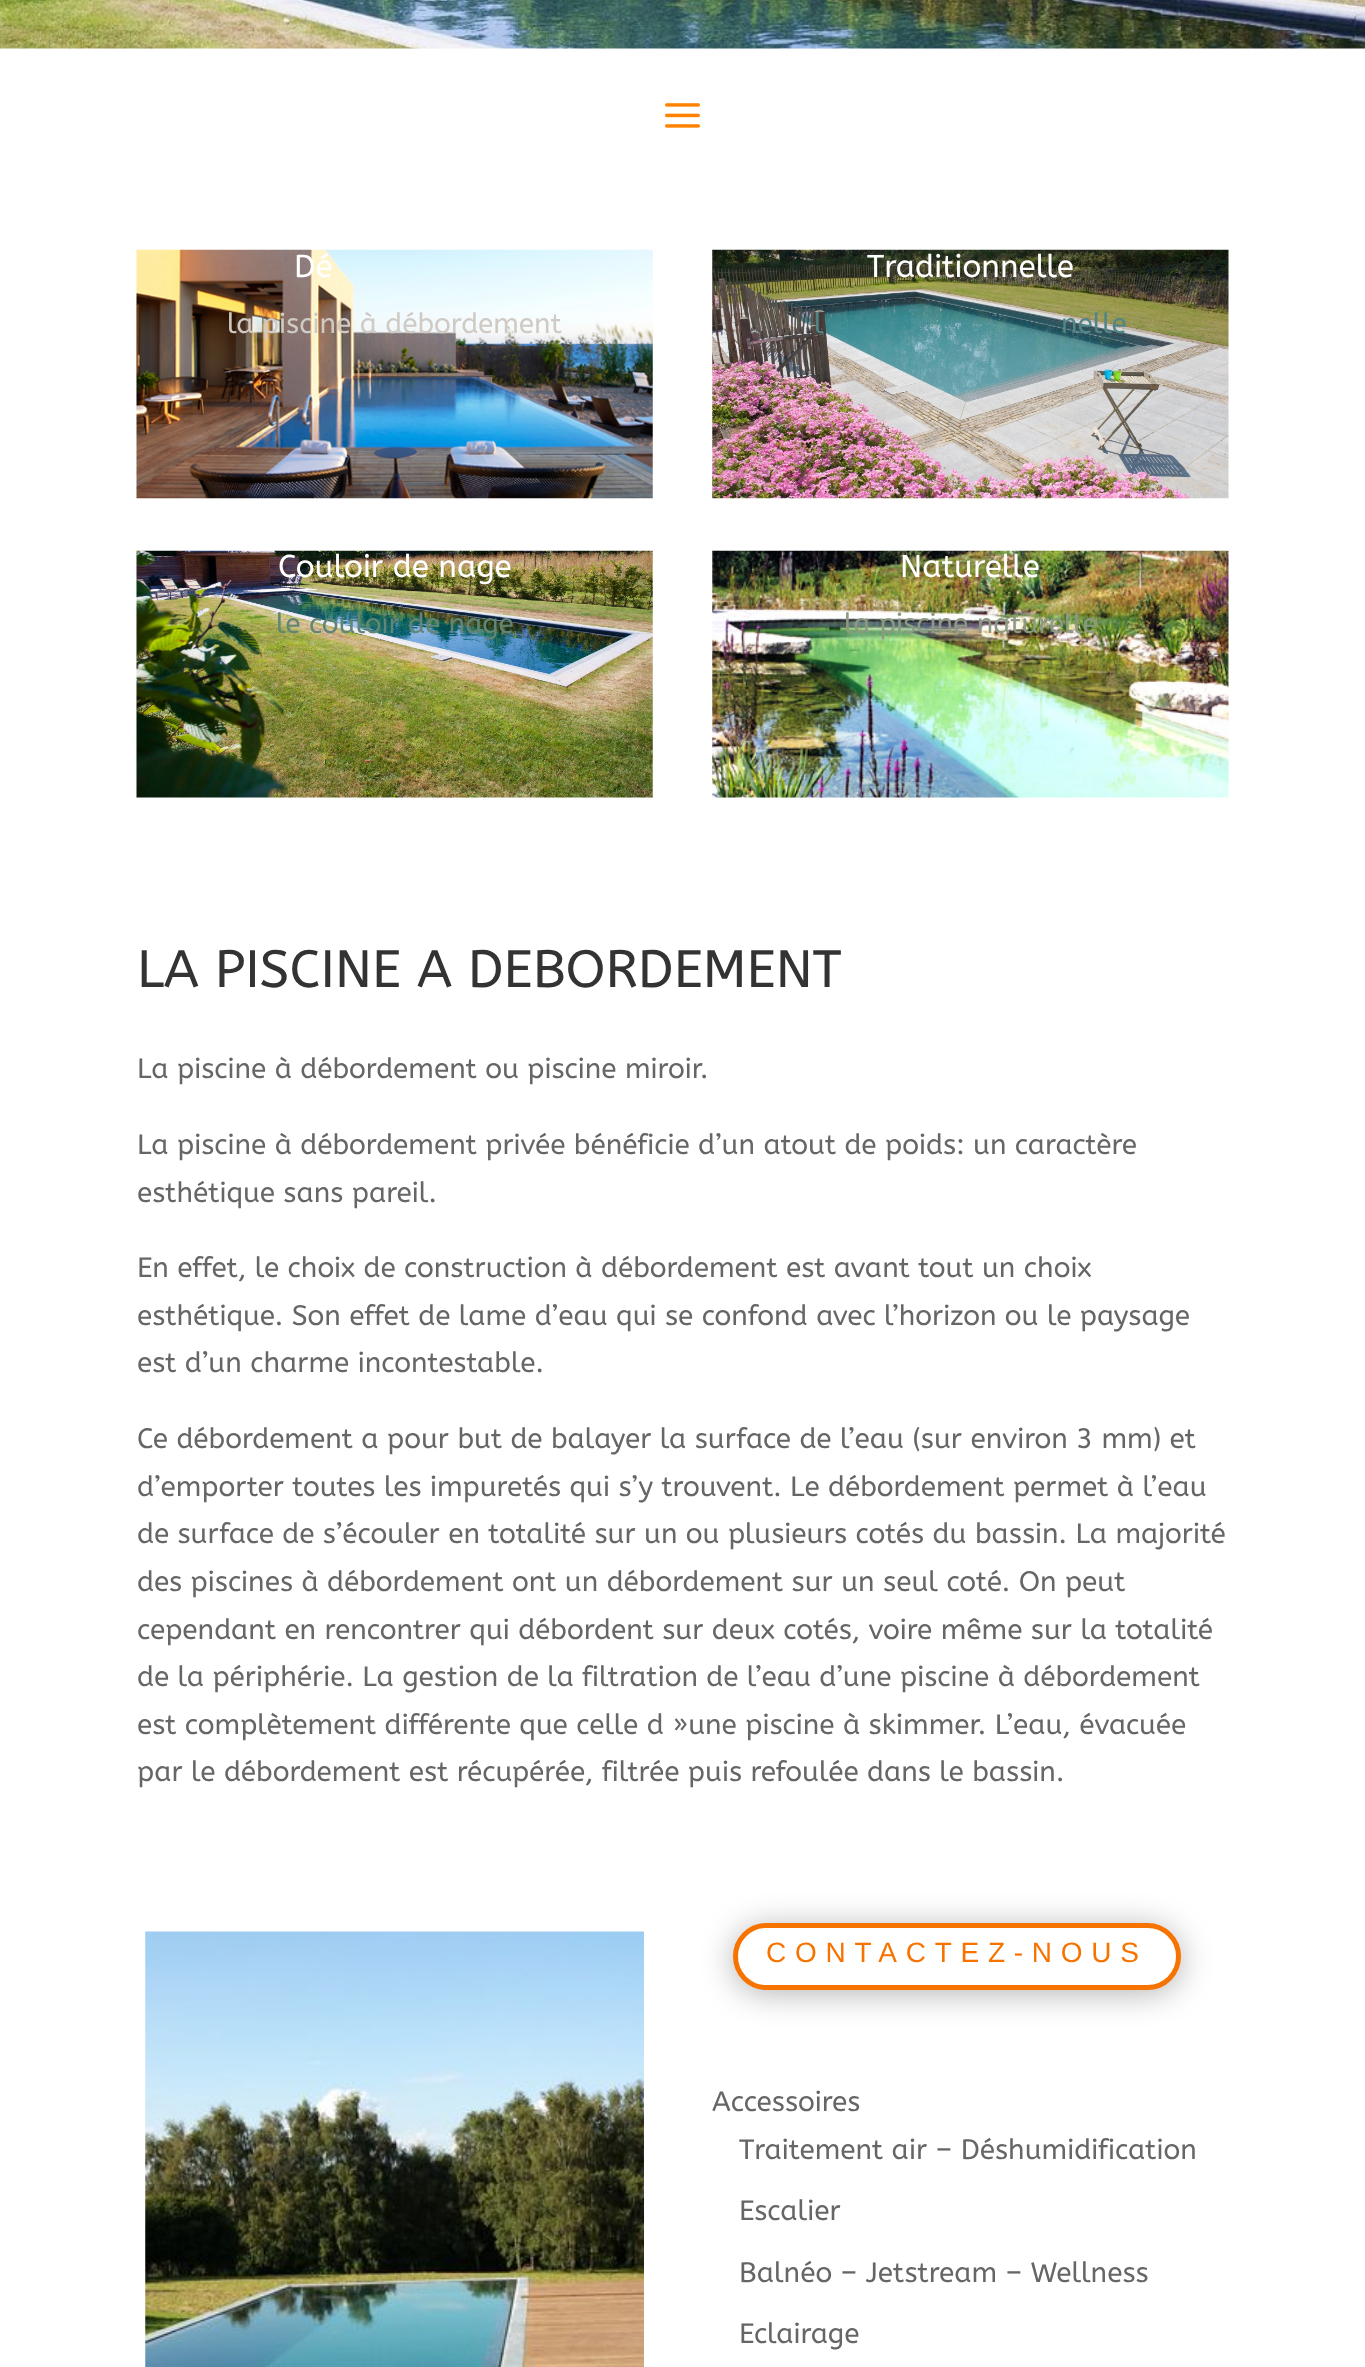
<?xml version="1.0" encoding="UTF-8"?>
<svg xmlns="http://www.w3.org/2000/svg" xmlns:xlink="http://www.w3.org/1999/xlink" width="1365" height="2367">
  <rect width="100%" height="100%" fill="#ffffff" />
  <image x="0" y="0" width="1365" height="49" xlink:href="image1.png" />
  <image x="665" y="103" width="35" height="25" xlink:href="image2.png" />
  <image x="136" y="249" width="517" height="250" xlink:href="image3.png" />
  <image x="712" y="249" width="517" height="250" xlink:href="image4.png" />
  <image x="136" y="550" width="517" height="248" xlink:href="image5.png" />
  <image x="712" y="550" width="517" height="248" xlink:href="image6.png" />
  <image x="145" y="1931" width="499" height="436" xlink:href="image7.png" />
  <rect x="733" y="1927" width="448" height="66" rx="33" fill="#000000" fill-opacity="0.3" filter="blur(16px)" />
  <rect x="735.5" y="1925.5" width="443" height="62" rx="31" fill="#ffffff" stroke="#f77300" stroke-width="5" />
  <text x="294" y="277" style="font-family: ABeeZee; font-size: 31.5px; fill: #ffffff">Dé</text>
  <text x="227" y="333" style="font-family: ABeeZee; font-size: 28px; fill: #cfcac4">la piscine à débordement</text>
  <text x="867" y="277" style="font-family: ABeeZee; font-size: 31.5px; fill: #ffffff">Traditionnelle</text>
  <text x="814" y="333" style="font-family: ABeeZee; font-size: 28px; fill: #518587">l</text>
  <text x="1061" y="333" style="font-family: ABeeZee; font-size: 28px; fill: #518587">nelle</text>
  <text x="278" y="577" style="font-family: ABeeZee; font-size: 31.5px; fill: #ffffff">Couloir de nage</text>
  <text x="276" y="633" style="font-family: ABeeZee; font-size: 28px; fill: #638575">le couloir de nage</text>
  <text x="900" y="577" style="font-family: ABeeZee; font-size: 31.5px; fill: #ffffff">Naturelle</text>
  <text x="844" y="633" style="font-family: ABeeZee; font-size: 28px; fill: #8d9980">la piscine naturelle</text>
  <text x="137" y="987" style="font-family: ABeeZee; font-size: 52.5px; fill: #333333">LA PISCINE A DEBORDEMENT</text>
  <text x="137" y="1078" style="font-family: ABeeZee; font-size: 28px; fill: #666666">La piscine à débordement ou piscine miroir.</text>
  <text x="137" y="1154" style="font-family: ABeeZee; font-size: 28px; fill: #666666">La piscine à débordement privée bénéficie d’un atout de poids: un caractère</text>
  <text x="137" y="1202" style="font-family: ABeeZee; font-size: 28px; fill: #666666">esthétique sans pareil.</text>
  <text x="137" y="1277" style="font-family: ABeeZee; font-size: 28px; fill: #666666">En effet, le choix de construction à débordement est avant tout un choix</text>
  <text x="137" y="1325" style="font-family: ABeeZee; font-size: 28px; fill: #666666">esthétique. Son effet de lame d’eau qui se confond avec l’horizon ou le paysage</text>
  <text x="137" y="1372" style="font-family: ABeeZee; font-size: 28px; fill: #666666">est d’un charme incontestable.</text>
  <text x="137" y="1448" style="font-family: ABeeZee; font-size: 28px; fill: #666666">Ce débordement a pour but de balayer la surface de l’eau (sur environ 3 mm) et</text>
  <text x="137" y="1496" style="font-family: ABeeZee; font-size: 28px; fill: #666666">d’emporter toutes les impuretés qui s’y trouvent. Le débordement permet à l’eau</text>
  <text x="137" y="1543" style="font-family: ABeeZee; font-size: 28px; fill: #666666">de surface de s’écouler en totalité sur un ou plusieurs cotés du bassin. La majorité</text>
  <text x="137" y="1591" style="font-family: ABeeZee; font-size: 28px; fill: #666666">des piscines à débordement ont un débordement sur un seul coté. On peut</text>
  <text x="137" y="1639" style="font-family: ABeeZee; font-size: 28px; fill: #666666">cependant en rencontrer qui débordent sur deux cotés, voire même sur la totalité</text>
  <text x="137" y="1686" style="font-family: ABeeZee; font-size: 28px; fill: #666666">de la périphérie. La gestion de la filtration de l’eau d’une piscine à débordement</text>
  <text x="137" y="1734" style="font-family: ABeeZee; font-size: 28px; fill: #666666">est complètement différente que celle d »une piscine à skimmer. L’eau, évacuée</text>
  <text x="137" y="1781" style="font-family: ABeeZee; font-size: 28px; fill: #666666">par le débordement est récupérée, filtrée puis refoulée dans le bassin.</text>
  <text x="766" y="1962" style="font-family: Liberation Sans; font-size: 28px; letter-spacing: 8.75px; fill: #f77300">CONTACTEZ-NOUS</text>
  <text x="712" y="2111" style="font-family: ABeeZee; font-size: 28px; fill: #666666">Accessoires</text>
  <text x="739" y="2159" style="font-family: ABeeZee; font-size: 28px; fill: #666666">Traitement air – Déshumidification</text>
  <text x="739" y="2220" style="font-family: ABeeZee; font-size: 28px; fill: #666666">Escalier</text>
  <text x="739" y="2282" style="font-family: ABeeZee; font-size: 28px; fill: #666666">Balnéo – Jetstream – Wellness</text>
  <text x="739" y="2343" style="font-family: ABeeZee; font-size: 28px; fill: #666666">Eclairage</text>
</svg>
